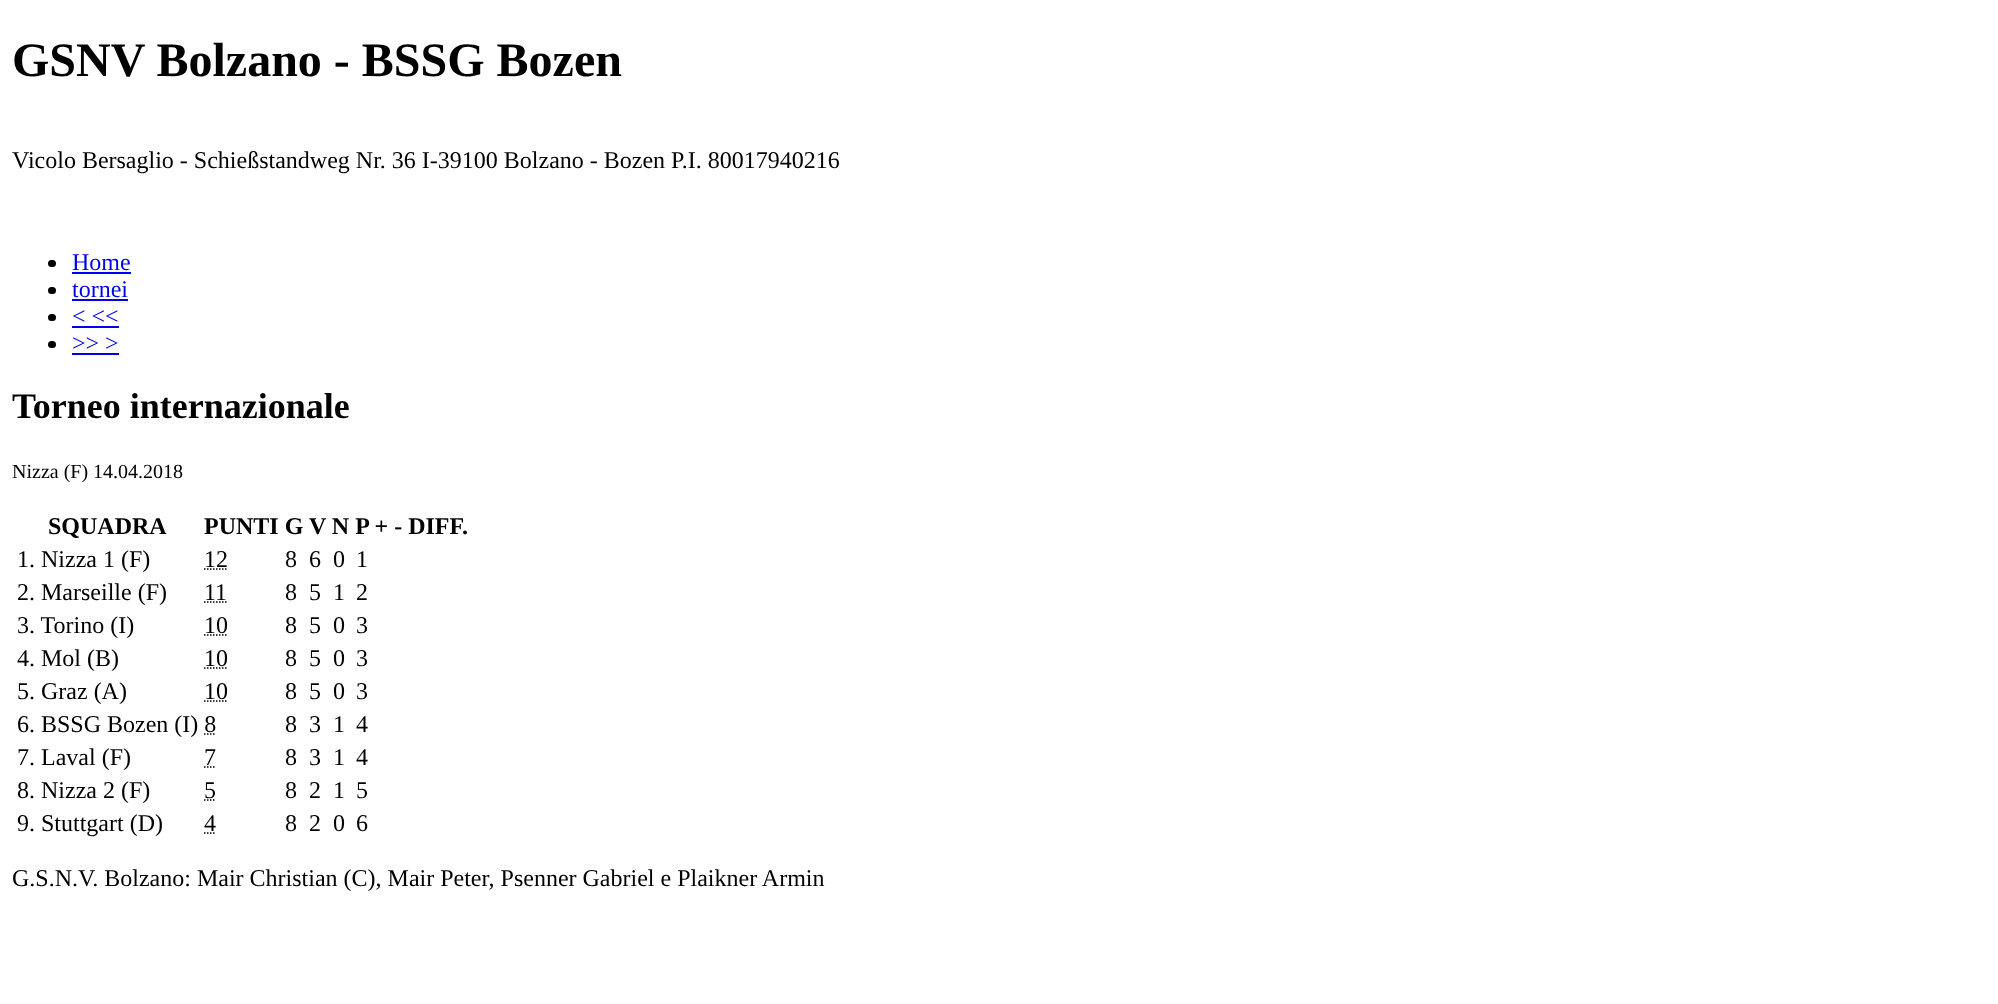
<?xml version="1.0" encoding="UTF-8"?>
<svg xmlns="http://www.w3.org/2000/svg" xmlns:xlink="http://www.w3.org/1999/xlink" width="1998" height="1004">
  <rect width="100%" height="100%" fill="#ffffff" />
  <rect x="48" y="260" width="8" height="7" rx="3.5" fill="#000000" />
  <rect x="72" y="272" width="59" height="2" fill="#0000ee" />
  <rect x="48" y="287" width="8" height="7" rx="3.5" fill="#000000" />
  <rect x="72" y="299" width="56" height="2" fill="#0000ee" />
  <rect x="48" y="314" width="8" height="7" rx="3.5" fill="#000000" />
  <rect x="72" y="326" width="47" height="2" fill="#0000ee" />
  <rect x="48" y="341" width="8" height="7" rx="3.5" fill="#000000" />
  <rect x="72" y="353" width="47" height="2" fill="#0000ee" />
  <path d="M 204 569 h 24" fill="none" stroke="#000000" stroke-width="1.5" stroke-dasharray="1.5 1.5" />
  <path d="M 204 602 h 23" fill="none" stroke="#000000" stroke-width="1.5" stroke-dasharray="1.5 1.5" />
  <path d="M 204 635 h 24" fill="none" stroke="#000000" stroke-width="1.5" stroke-dasharray="1.5 1.5" />
  <path d="M 204 668 h 24" fill="none" stroke="#000000" stroke-width="1.5" stroke-dasharray="1.5 1.5" />
  <path d="M 204 701 h 24" fill="none" stroke="#000000" stroke-width="1.5" stroke-dasharray="1.5 1.5" />
  <path d="M 204 734 h 12" fill="none" stroke="#000000" stroke-width="1.5" stroke-dasharray="1.5 1.5" />
  <path d="M 204 767 h 12" fill="none" stroke="#000000" stroke-width="1.5" stroke-dasharray="1.5 1.5" />
  <path d="M 204 800 h 12" fill="none" stroke="#000000" stroke-width="1.5" stroke-dasharray="1.5 1.5" />
  <path d="M 204 833 h 12" fill="none" stroke="#000000" stroke-width="1.5" stroke-dasharray="1.5 1.5" />
  <text x="12" y="76" style="font-family: Liberation Serif; font-size: 48px; font-weight: bold; fill: #000000">GSNV Bolzano - BSSG Bozen</text>
  <text x="12" y="168" style="font-family: Liberation Serif; font-size: 24px; fill: #000000">Vicolo Bersaglio - Schießstandweg Nr. 36 I-39100 Bolzano - Bozen P.I. 80017940216</text>
  <text x="72" y="270" style="font-family: Liberation Serif; font-size: 24px; fill: #0000ee">Home</text>
  <text x="72" y="297" style="font-family: Liberation Serif; font-size: 24px; fill: #0000ee">tornei</text>
  <text x="72" y="324" style="font-family: Liberation Serif; font-size: 24px; fill: #0000ee">&lt; &lt;&lt;</text>
  <text x="72" y="351" style="font-family: Liberation Serif; font-size: 24px; fill: #0000ee">&gt;&gt; &gt;</text>
  <text x="12" y="418" style="font-family: Liberation Serif; font-size: 36px; font-weight: bold; fill: #000000">Torneo internazionale</text>
  <text x="12" y="478" style="font-family: Liberation Serif; font-size: 20px; fill: #000000">Nizza (F) 14.04.2018</text>
  <text x="48" y="534" style="font-family: Liberation Serif; font-size: 24px; font-weight: bold; fill: #000000">SQUADRA</text>
  <text x="204" y="534" style="font-family: Liberation Serif; font-size: 24px; font-weight: bold; fill: #000000">PUNTI G V N P + - DIFF.</text>
  <text x="17" y="567" style="font-family: Liberation Serif; font-size: 24px; fill: #000000">1. Nizza 1 (F)</text>
  <text x="204" y="567" style="font-family: Liberation Serif; font-size: 24px; fill: #000000">12</text>
  <text x="285" y="567" style="font-family: Liberation Serif; font-size: 24px; fill: #000000">8</text>
  <text x="309" y="567" style="font-family: Liberation Serif; font-size: 24px; fill: #000000">6</text>
  <text x="333" y="567" style="font-family: Liberation Serif; font-size: 24px; fill: #000000">0</text>
  <text x="356" y="567" style="font-family: Liberation Serif; font-size: 24px; fill: #000000">1</text>
  <text x="17" y="600" style="font-family: Liberation Serif; font-size: 24px; fill: #000000">2. Marseille (F)</text>
  <text x="204" y="600" style="font-family: Liberation Serif; font-size: 24px; fill: #000000">11</text>
  <text x="285" y="600" style="font-family: Liberation Serif; font-size: 24px; fill: #000000">8</text>
  <text x="309" y="600" style="font-family: Liberation Serif; font-size: 24px; fill: #000000">5</text>
  <text x="333" y="600" style="font-family: Liberation Serif; font-size: 24px; fill: #000000">1</text>
  <text x="356" y="600" style="font-family: Liberation Serif; font-size: 24px; fill: #000000">2</text>
  <text x="17" y="633" style="font-family: Liberation Serif; font-size: 24px; fill: #000000">3. Torino (I)</text>
  <text x="204" y="633" style="font-family: Liberation Serif; font-size: 24px; fill: #000000">10</text>
  <text x="285" y="633" style="font-family: Liberation Serif; font-size: 24px; fill: #000000">8</text>
  <text x="309" y="633" style="font-family: Liberation Serif; font-size: 24px; fill: #000000">5</text>
  <text x="333" y="633" style="font-family: Liberation Serif; font-size: 24px; fill: #000000">0</text>
  <text x="356" y="633" style="font-family: Liberation Serif; font-size: 24px; fill: #000000">3</text>
  <text x="17" y="666" style="font-family: Liberation Serif; font-size: 24px; fill: #000000">4. Mol (B)</text>
  <text x="204" y="666" style="font-family: Liberation Serif; font-size: 24px; fill: #000000">10</text>
  <text x="285" y="666" style="font-family: Liberation Serif; font-size: 24px; fill: #000000">8</text>
  <text x="309" y="666" style="font-family: Liberation Serif; font-size: 24px; fill: #000000">5</text>
  <text x="333" y="666" style="font-family: Liberation Serif; font-size: 24px; fill: #000000">0</text>
  <text x="356" y="666" style="font-family: Liberation Serif; font-size: 24px; fill: #000000">3</text>
  <text x="17" y="699" style="font-family: Liberation Serif; font-size: 24px; fill: #000000">5. Graz (A)</text>
  <text x="204" y="699" style="font-family: Liberation Serif; font-size: 24px; fill: #000000">10</text>
  <text x="285" y="699" style="font-family: Liberation Serif; font-size: 24px; fill: #000000">8</text>
  <text x="309" y="699" style="font-family: Liberation Serif; font-size: 24px; fill: #000000">5</text>
  <text x="333" y="699" style="font-family: Liberation Serif; font-size: 24px; fill: #000000">0</text>
  <text x="356" y="699" style="font-family: Liberation Serif; font-size: 24px; fill: #000000">3</text>
  <text x="17" y="732" style="font-family: Liberation Serif; font-size: 24px; fill: #000000">6. BSSG Bozen (I) 8</text>
  <text x="285" y="732" style="font-family: Liberation Serif; font-size: 24px; fill: #000000">8</text>
  <text x="309" y="732" style="font-family: Liberation Serif; font-size: 24px; fill: #000000">3</text>
  <text x="333" y="732" style="font-family: Liberation Serif; font-size: 24px; fill: #000000">1</text>
  <text x="356" y="732" style="font-family: Liberation Serif; font-size: 24px; fill: #000000">4</text>
  <text x="17" y="765" style="font-family: Liberation Serif; font-size: 24px; fill: #000000">7. Laval (F)</text>
  <text x="204" y="765" style="font-family: Liberation Serif; font-size: 24px; fill: #000000">7</text>
  <text x="285" y="765" style="font-family: Liberation Serif; font-size: 24px; fill: #000000">8</text>
  <text x="309" y="765" style="font-family: Liberation Serif; font-size: 24px; fill: #000000">3</text>
  <text x="333" y="765" style="font-family: Liberation Serif; font-size: 24px; fill: #000000">1</text>
  <text x="356" y="765" style="font-family: Liberation Serif; font-size: 24px; fill: #000000">4</text>
  <text x="17" y="798" style="font-family: Liberation Serif; font-size: 24px; fill: #000000">8. Nizza 2 (F)</text>
  <text x="204" y="798" style="font-family: Liberation Serif; font-size: 24px; fill: #000000">5</text>
  <text x="285" y="798" style="font-family: Liberation Serif; font-size: 24px; fill: #000000">8</text>
  <text x="309" y="798" style="font-family: Liberation Serif; font-size: 24px; fill: #000000">2</text>
  <text x="333" y="798" style="font-family: Liberation Serif; font-size: 24px; fill: #000000">1</text>
  <text x="356" y="798" style="font-family: Liberation Serif; font-size: 24px; fill: #000000">5</text>
  <text x="17" y="831" style="font-family: Liberation Serif; font-size: 24px; fill: #000000">9. Stuttgart (D)</text>
  <text x="204" y="831" style="font-family: Liberation Serif; font-size: 24px; fill: #000000">4</text>
  <text x="285" y="831" style="font-family: Liberation Serif; font-size: 24px; fill: #000000">8</text>
  <text x="309" y="831" style="font-family: Liberation Serif; font-size: 24px; fill: #000000">2</text>
  <text x="333" y="831" style="font-family: Liberation Serif; font-size: 24px; fill: #000000">0</text>
  <text x="356" y="831" style="font-family: Liberation Serif; font-size: 24px; fill: #000000">6</text>
  <text x="12" y="886" style="font-family: Liberation Serif; font-size: 24px; fill: #000000">G.S.N.V. Bolzano: Mair Christian (C), Mair Peter, Psenner Gabriel e Plaikner Armin</text>
</svg>
